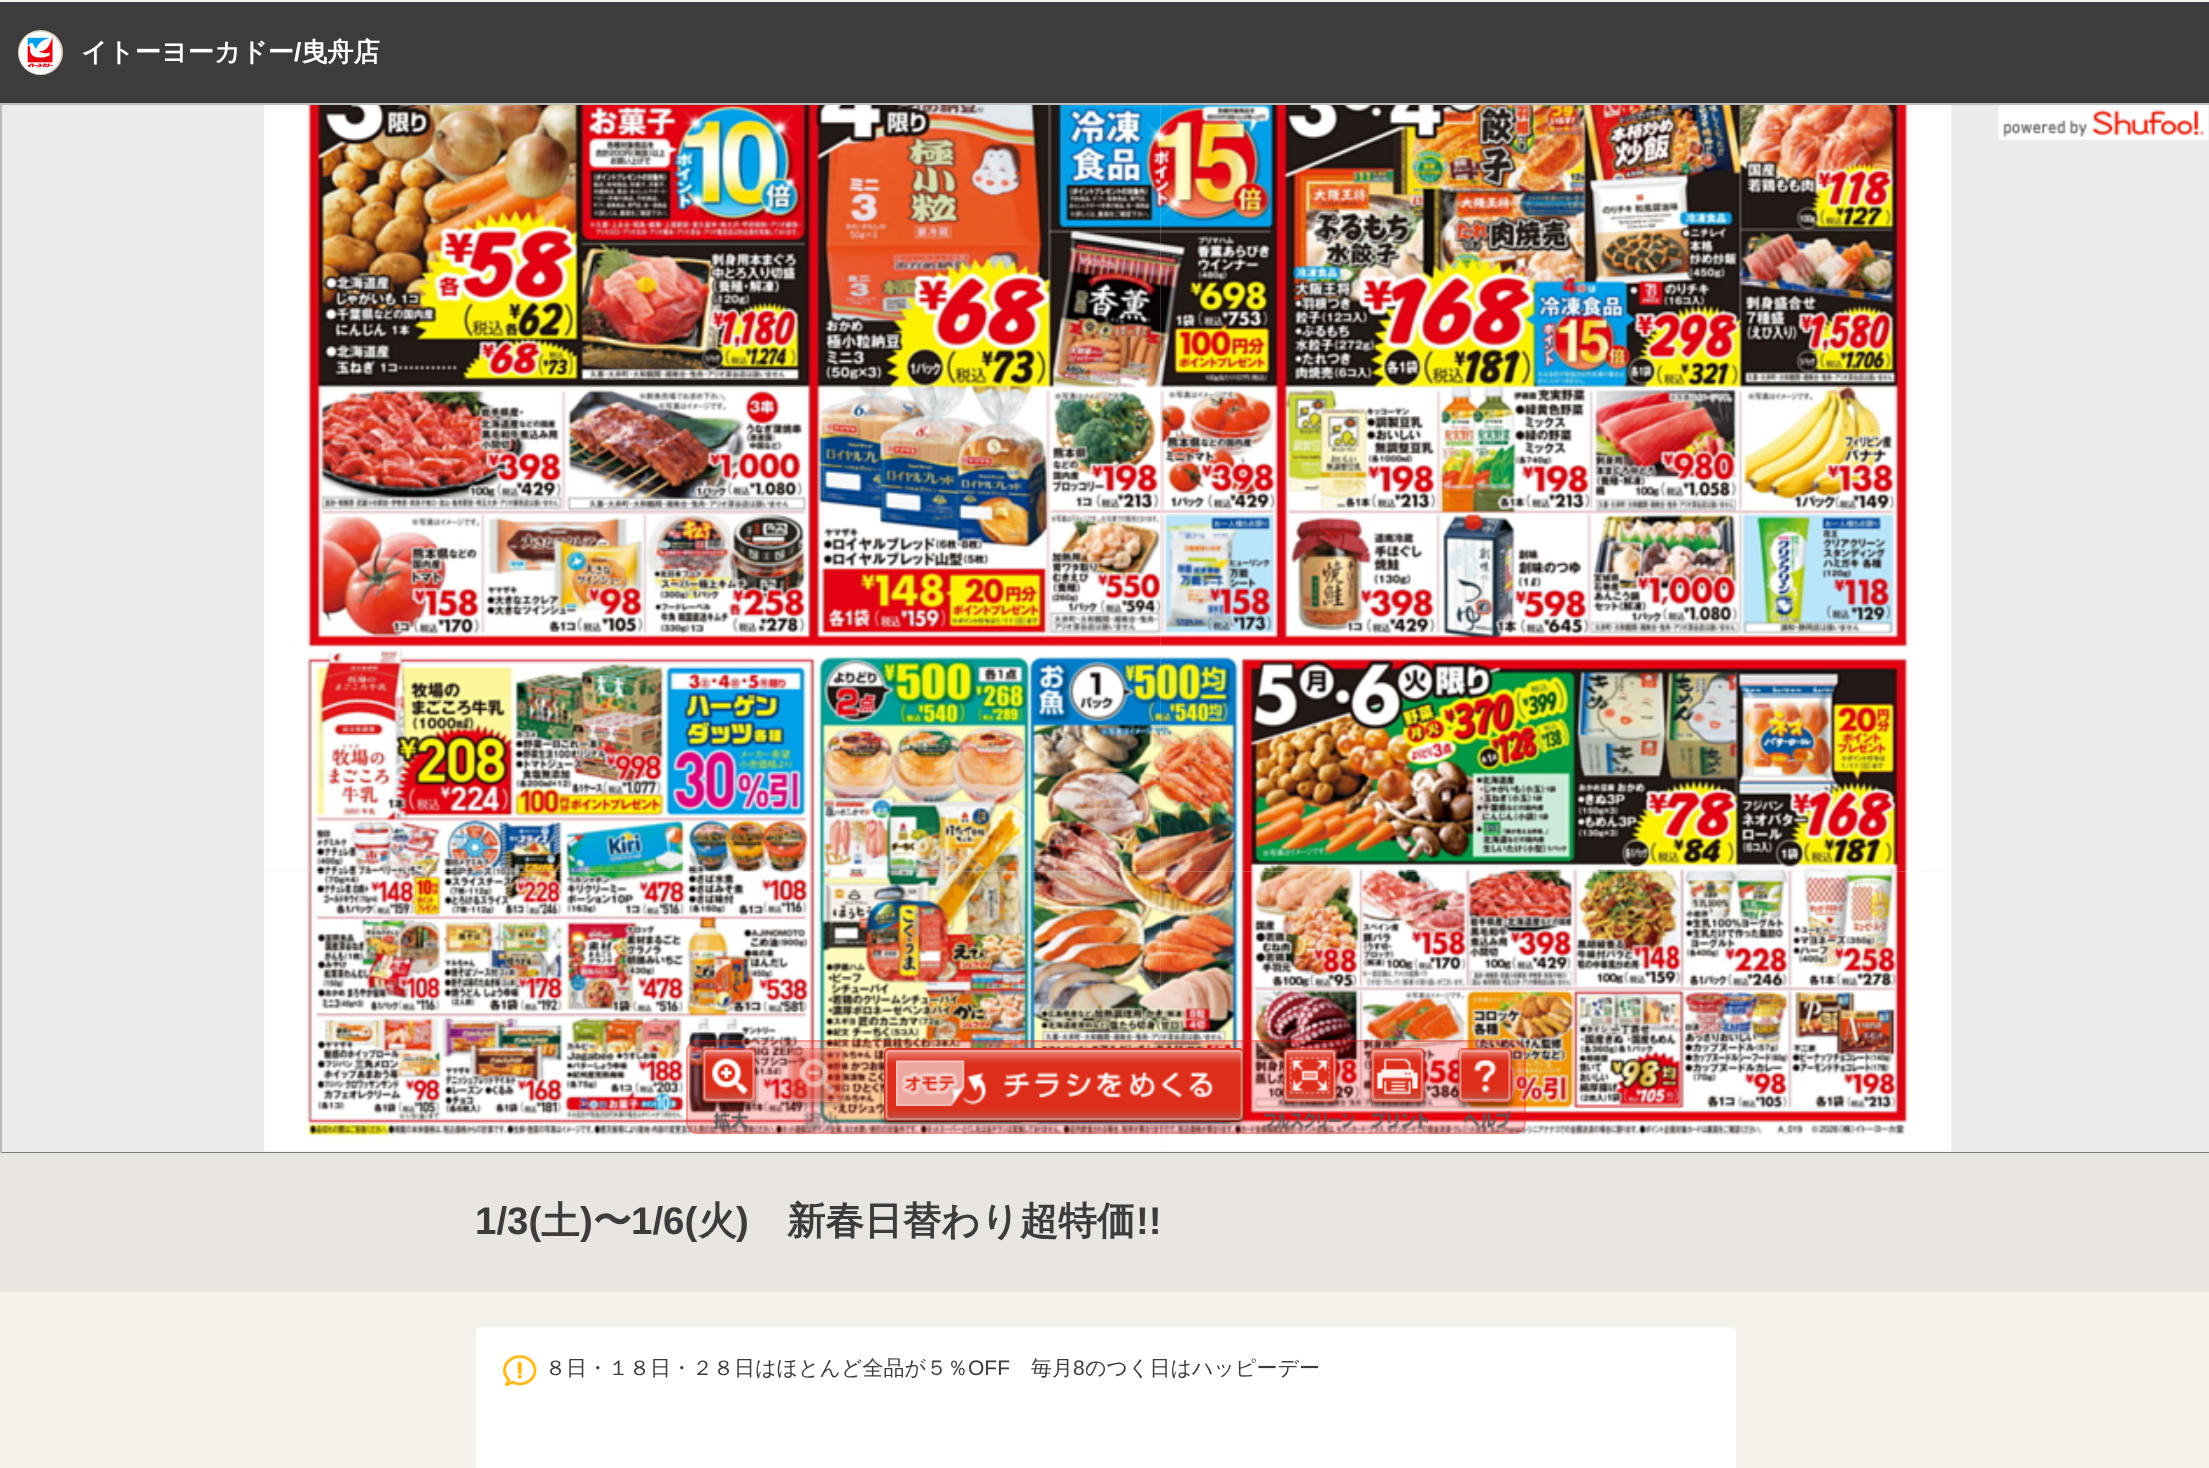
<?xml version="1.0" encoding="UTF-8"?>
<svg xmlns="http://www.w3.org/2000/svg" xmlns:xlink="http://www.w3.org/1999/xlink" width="2209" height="1468">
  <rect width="100%" height="100%" fill="#f4f0ea" />
  <rect y="2" width="2209" height="101" fill="#3c3c3c" />
  <circle cx="40.5" cy="52.5" r="21.5" fill="none" stroke="#ddd0bf" stroke-width="2" />
  <circle cx="40" cy="53" r="21" fill="#ffffff" />
  <image x="19" y="31" width="43" height="42" xlink:href="image1.png" />
  <rect x="2" y="105" width="2207" height="1047" fill="#ebebeb" />
  <rect y="103" width="2209" height="2" fill="#bbbbbb" />
  <rect y="1152" width="2209" height="1" fill="#7d7d7d" />
  <rect y="103" width="2" height="1050" fill="#bbbbbb" />
  <image x="264" y="105" width="897" height="767" xlink:href="image2.png" />
  <image x="1160" y="105" width="792" height="767" xlink:href="image3.png" />
  <image x="264" y="871" width="897" height="281" xlink:href="image4.png" />
  <image x="1160" y="871" width="792" height="281" xlink:href="image5.png" />
  <image x="1998" y="105" width="211" height="35" xlink:href="image6.png" />
  <rect x="686" y="1040" width="840" height="94" rx="11" fill="#ff0000" fill-opacity="0.2" />
  <rect x="687" y="1041" width="838" height="92" rx="10" fill="none" stroke="#dc2e1a" stroke-opacity="0.3" stroke-width="2" />
  <rect x="704" y="1050" width="50" height="51" rx="4" fill="#dc2e1a" />
  <rect x="703" y="1049" width="52" height="53" rx="4" fill="none" stroke="#dc2e1a" stroke-opacity="0.65" stroke-width="2" />
  <image x="698" y="1049" width="61" height="60" xlink:href="image7.png" />
  <image x="698" y="1053" width="61" height="56" xlink:href="image8.png" />
  <image x="712" y="1111" width="37" height="18" xlink:href="image9.png" />
  <rect x="791" y="1050" width="51" height="51" rx="4" fill="#dc2e1a" fill-opacity="0.5" />
  <rect x="790" y="1049" width="53" height="53" rx="4" fill="none" stroke="#dc2e1a" stroke-opacity="0.33" stroke-width="2" />
  <image x="787" y="1049" width="59" height="59" xlink:href="image10.png" />
  <image x="787" y="1055" width="59" height="53" xlink:href="image11.png" />
  <image x="803" y="1111" width="37" height="18" xlink:href="image12.png" />
  <rect x="884" y="1048" width="360" height="74" rx="5" fill="#dc2e1a" />
  <image x="885" y="1049" width="358" height="72" xlink:href="image13.png" />
  <image x="879" y="1050" width="367" height="77" xlink:href="image14.png" />
  <image x="879" y="1050" width="367" height="77" xlink:href="image15.png" />
  <rect x="1285" y="1050" width="50" height="51" rx="4" fill="#dc2e1a" />
  <rect x="1284" y="1049" width="52" height="53" rx="4" fill="none" stroke="#dc2e1a" stroke-opacity="0.65" stroke-width="2" />
  <image x="1279" y="1049" width="61" height="60" xlink:href="image16.png" />
  <image x="1279" y="1055" width="61" height="54" xlink:href="image17.png" />
  <image x="1263" y="1111" width="92" height="18" xlink:href="image18.png" />
  <rect x="1372" y="1050" width="51" height="51" rx="4" fill="#dc2e1a" />
  <rect x="1371" y="1049" width="53" height="53" rx="4" fill="none" stroke="#dc2e1a" stroke-opacity="0.65" stroke-width="2" />
  <image x="1367" y="1049" width="61" height="60" xlink:href="image19.png" />
  <image x="1367" y="1052" width="61" height="57" xlink:href="image20.png" />
  <image x="1372" y="1111" width="56" height="18" xlink:href="image21.png" />
  <rect x="1460" y="1050" width="50" height="51" rx="4" fill="#dc2e1a" />
  <rect x="1459" y="1049" width="52" height="53" rx="4" fill="none" stroke="#dc2e1a" stroke-opacity="0.65" stroke-width="2" />
  <image x="1454" y="1049" width="61" height="60" xlink:href="image22.png" />
  <image x="1454" y="1052" width="61" height="57" xlink:href="image23.png" />
  <image x="1463" y="1111" width="49" height="18" xlink:href="image24.png" />
  <rect y="1153" width="2209" height="139" fill="#e9e5e1" />
  <rect x="476" y="1327" width="1260" height="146" rx="5" fill="#ffffff" />
  <image x="502" y="1354" width="35" height="33" xlink:href="image25.png" />
  <text x="81" y="61" style="font-family: WenQuanYi Zen Hei; font-size: 26.25px; font-weight: bold; fill: #ffffff">イトーヨーカドー</text>
  <text x="294" y="61" style="font-family: Liberation Sans; font-size: 26.25px; font-weight: bold; fill: #ffffff">/</text>
  <text x="301" y="61" style="font-family: WenQuanYi Zen Hei; font-size: 26.25px; font-weight: bold; fill: #ffffff">曳舟店</text>
  <text x="475" y="1234" style="font-family: Liberation Sans; font-size: 38.5px; font-weight: bold; fill: #3c3c3c">1/3(</text>
  <text x="541" y="1234" style="font-family: WenQuanYi Zen Hei; font-size: 38.5px; font-weight: bold; fill: #3c3c3c">土</text>
  <text x="580" y="1234" style="font-family: Liberation Sans; font-size: 38.5px; font-weight: bold; fill: #3c3c3c">)</text>
  <text x="593" y="1234" style="font-family: WenQuanYi Zen Hei; font-size: 38.5px; font-weight: bold; fill: #3c3c3c">〜</text>
  <text x="631" y="1234" style="font-family: Liberation Sans; font-size: 38.5px; font-weight: bold; fill: #3c3c3c">1/6(</text>
  <text x="698" y="1234" style="font-family: WenQuanYi Zen Hei; font-size: 38.5px; font-weight: bold; fill: #3c3c3c">火</text>
  <text x="736" y="1234" style="font-family: Liberation Sans; font-size: 38.5px; font-weight: bold; fill: #3c3c3c">)</text>
  <text x="787" y="1234" style="font-family: WenQuanYi Zen Hei; font-size: 38.5px; font-weight: bold; fill: #3c3c3c">新春日替わり超特価</text>
  <text x="1136" y="1234" style="font-family: Liberation Sans; font-size: 38.5px; font-weight: bold; fill: #3c3c3c">!!</text>
  <text x="545" y="1375" style="font-family: WenQuanYi Zen Hei; font-size: 21px; font-weight: 500; fill: #3c3c3c">８日・１８日・２８日はほとんど全品が５％</text>
  <text x="968" y="1375" style="font-family: Liberation Sans; font-size: 21px; fill: #3c3c3c">OFF</text>
  <text x="1031" y="1375" style="font-family: WenQuanYi Zen Hei; font-size: 21px; font-weight: 500; fill: #3c3c3c">毎月</text>
  <text x="1073" y="1375" style="font-family: Liberation Sans; font-size: 21px; fill: #3c3c3c">8</text>
  <text x="1085" y="1375" style="font-family: WenQuanYi Zen Hei; font-size: 21px; font-weight: 500; fill: #3c3c3c">のつく日はハッピーデー</text>
</svg>
